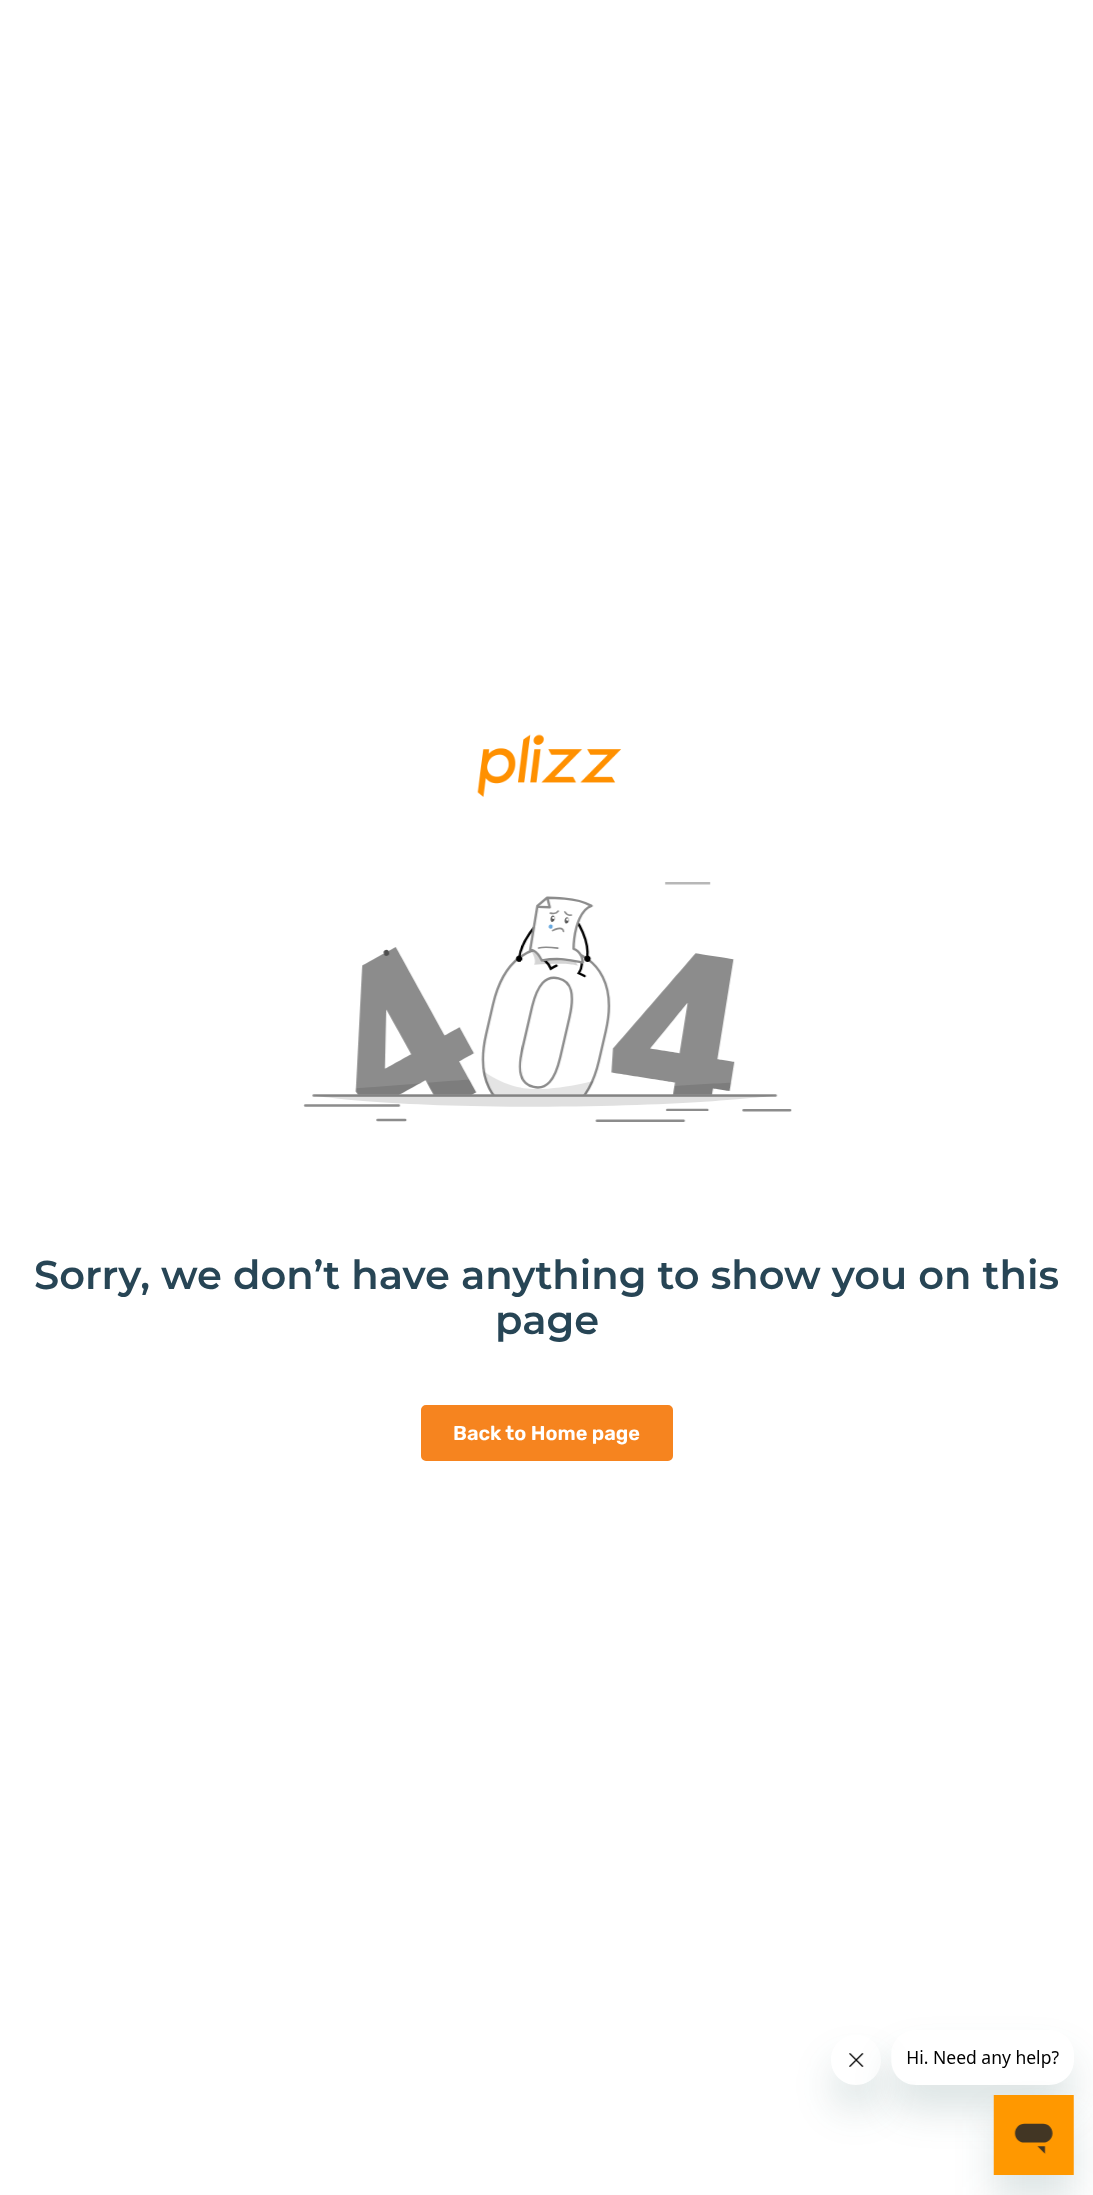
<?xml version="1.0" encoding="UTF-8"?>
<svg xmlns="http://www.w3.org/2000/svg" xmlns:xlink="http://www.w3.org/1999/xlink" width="1093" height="2195">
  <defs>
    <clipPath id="clip1"><path d="M 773 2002 h 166 v 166 h -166 z m 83 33 c 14 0 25 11 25 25 c 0 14 -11 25 -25 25 c -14 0 -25 -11 -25 -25 c 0 -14 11 -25 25 -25 z" clip-rule="evenodd" /></clipPath>
    <clipPath id="clip2"><path d="M 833 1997 h 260 v 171 h -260 z m 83 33 h 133 c 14 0 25 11 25 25 v 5 c 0 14 -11 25 -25 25 h -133 c -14 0 -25 -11 -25 -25 v -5 c 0 -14 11 -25 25 -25 z" clip-rule="evenodd" /></clipPath>
  </defs>
  <rect width="100%" height="100%" fill="#ffffff" />
  <image x="477" y="734" width="145" height="63" xlink:href="image1.png" />
  <image x="303" y="882" width="489" height="240" xlink:href="image2.png" />
  <rect x="422.5" y="1406.5" width="249" height="53" rx="3.5" fill="#f6841f" stroke="#f6841f" stroke-width="3" />
  <g clip-path="url(#clip1)">
    <rect x="831" y="2060" width="50" height="50" rx="25" fill="#17494d" fill-opacity="0.15" filter="blur(19px)" />
  </g>
  <image x="849" y="2053" width="15" height="14" xlink:href="image4.png" />
  <g clip-path="url(#clip2)">
    <rect x="891" y="2055" width="183" height="55" rx="25" fill="#17494d" fill-opacity="0.15" filter="blur(19px)" />
  </g>
  <image x="892" y="2050" width="167" height="31" xlink:href="image3.png" />
  <rect x="994" y="2120" width="80" height="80" fill="#17494d" fill-opacity="0.15" filter="blur(19px)" />
  <image x="993" y="2095" width="81" height="80" xlink:href="image5.png" />
  <text x="34" y="1289" style="font-family: Montserrat; font-size: 40px; font-weight: 600; fill: #274555">Sorry, we don’t have anything to show you on this</text>
  <text x="495" y="1334" style="font-family: Montserrat; font-size: 40px; font-weight: 600; fill: #274555">page</text>
  <text x="453" y="1440" style="font-family: Rubik; font-size: 20px; font-weight: 600; fill: #ffffff">Back to Home page</text>
</svg>
